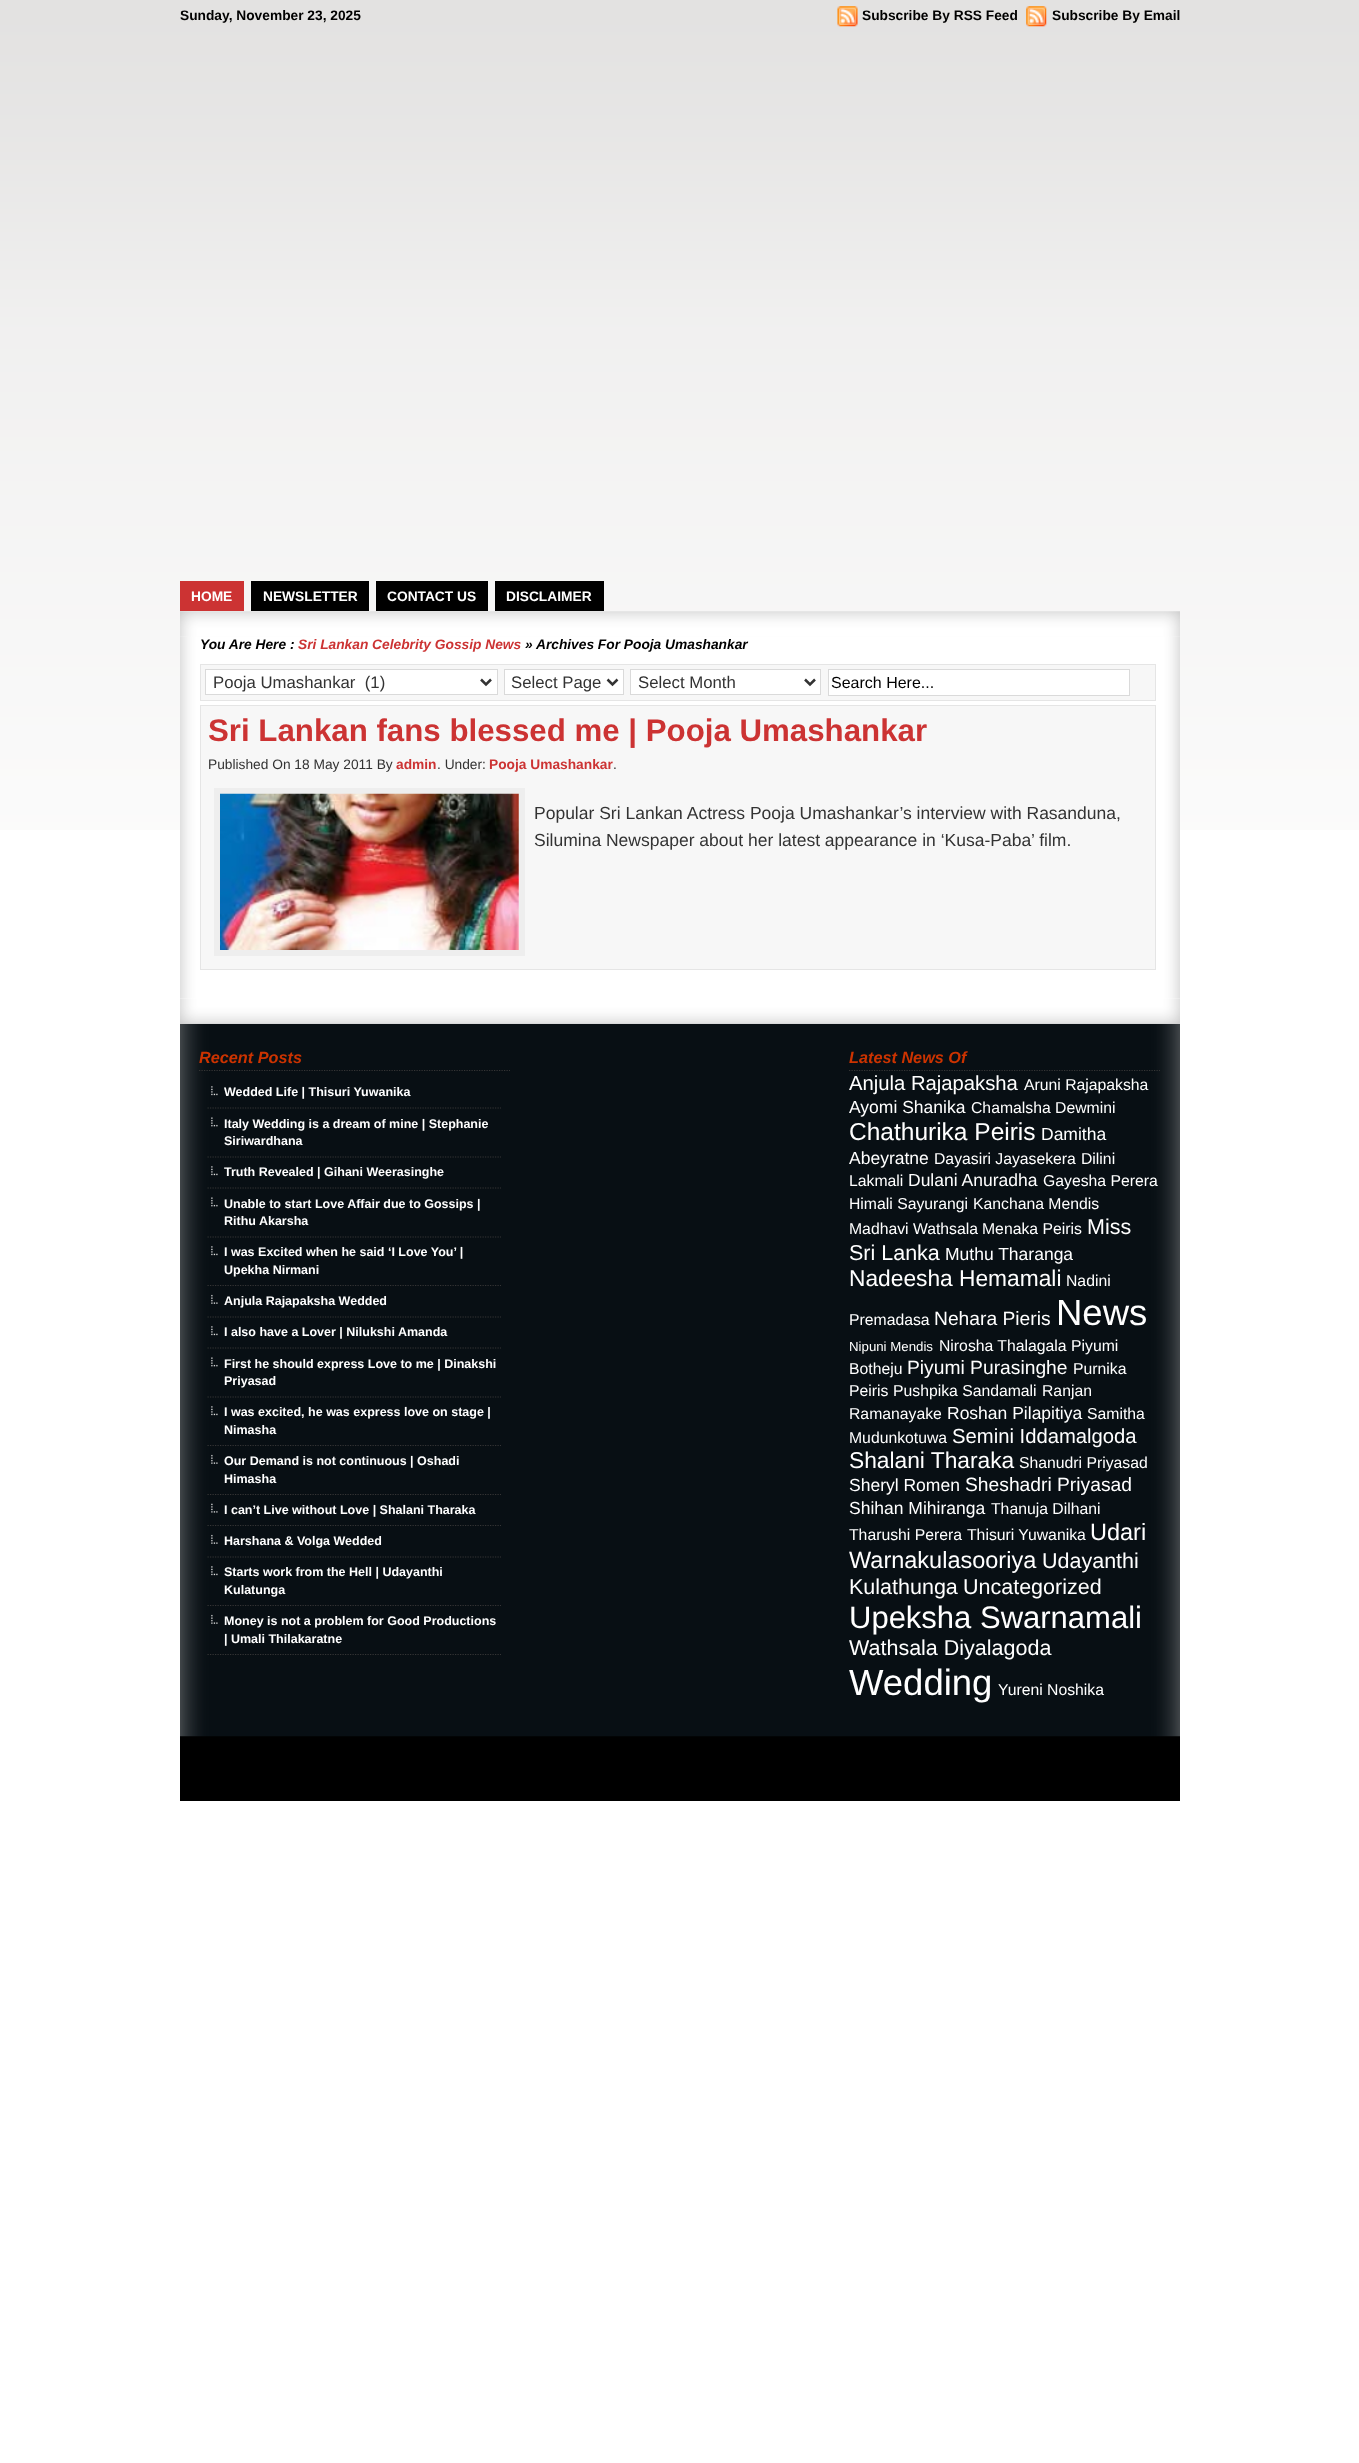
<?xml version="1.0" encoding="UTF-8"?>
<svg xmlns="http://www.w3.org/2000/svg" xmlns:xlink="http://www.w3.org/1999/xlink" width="1359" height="2463">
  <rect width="100%" height="100%" fill="#ffffff" />
  <image x="0" y="0" width="1359" height="830" xlink:href="image1.png" />
  <image x="837" y="6" width="21" height="21" xlink:href="image2.png" />
  <image x="1026" y="6" width="21" height="21" xlink:href="image3.png" />
  <rect x="180" y="581" width="64" height="30" fill="#cc3333" />
  <rect x="251" y="581" width="118" height="30" fill="#000000" />
  <rect x="376" y="581" width="112" height="30" fill="#000000" />
  <rect x="495" y="581" width="109" height="30" fill="#000000" />
  <image x="180" y="611" width="1000" height="26" xlink:href="image4.png" />
  <image x="180" y="636" width="1000" height="363" xlink:href="image5.png" />
  <rect x="200.5" y="664.5" width="955" height="36" fill="#f7f7f7" stroke="#e5e5e5" />
  <rect x="205.5" y="669.5" width="292" height="25" fill="#ffffff" stroke="#dadada" />
  <path d="M 481 679.5 l 5 5 l 5 -5" fill="none" stroke="#333333" stroke-width="2.5" />
  <rect x="504.5" y="669.5" width="119" height="25" fill="#ffffff" stroke="#dadada" />
  <path d="M 607.5 679.5 l 5 5 l 5 -5" fill="none" stroke="#333333" stroke-width="2.5" />
  <rect x="630.5" y="669.5" width="190" height="25" fill="#ffffff" stroke="#dadada" />
  <path d="M 805 679.5 l 5 5 l 5 -5" fill="none" stroke="#333333" stroke-width="2.5" />
  <rect x="828.5" y="669.5" width="301" height="26" fill="#ffffff" stroke="#dadada" />
  <rect x="200.5" y="705.5" width="955" height="264" fill="#f7f7f7" stroke="#e5e5e5" />
  <rect x="217" y="791" width="305" height="162" fill="none" stroke="#eeeeee" stroke-width="6" />
  <image x="220" y="793" width="299" height="157" xlink:href="image6.png" />
  <rect x="180" y="1736" width="1000" height="65" fill="#000000" />
  <image x="180" y="1023" width="1000" height="714" xlink:href="image8.png" />
  <image x="180" y="999" width="1000" height="25" xlink:href="image7.png" />
  <path d="M 199 1070.5 h 311" fill="none" stroke="#353535" stroke-width="1.2" stroke-dasharray="1.25 1.25" />
  <image x="211" y="1086" width="7" height="10" xlink:href="image9.png" />
  <path d="M 207.5 1108 h 293.5" fill="none" stroke="#353535" stroke-width="1.2" stroke-dasharray="1.25 1.25" />
  <image x="211" y="1117" width="7" height="10" xlink:href="image10.png" />
  <path d="M 207.5 1157 h 293.5" fill="none" stroke="#353535" stroke-width="1.2" stroke-dasharray="1.25 1.25" />
  <image x="211" y="1166" width="7" height="10" xlink:href="image9.png" />
  <path d="M 207.5 1188 h 293.5" fill="none" stroke="#353535" stroke-width="1.2" stroke-dasharray="1.25 1.25" />
  <image x="211" y="1197" width="7" height="10" xlink:href="image10.png" />
  <path d="M 207.5 1237 h 293.5" fill="none" stroke="#353535" stroke-width="1.2" stroke-dasharray="1.25 1.25" />
  <image x="211" y="1246" width="7" height="10" xlink:href="image9.png" />
  <path d="M 207.5 1285.5 h 293.5" fill="none" stroke="#353535" stroke-width="1.2" stroke-dasharray="1.25 1.25" />
  <image x="211" y="1294" width="7" height="10" xlink:href="image11.png" />
  <path d="M 207.5 1317 h 293.5" fill="none" stroke="#353535" stroke-width="1.2" stroke-dasharray="1.25 1.25" />
  <image x="211" y="1326" width="7" height="10" xlink:href="image9.png" />
  <path d="M 207.5 1348 h 293.5" fill="none" stroke="#353535" stroke-width="1.2" stroke-dasharray="1.25 1.25" />
  <image x="211" y="1357" width="7" height="10" xlink:href="image10.png" />
  <path d="M 207.5 1397 h 293.5" fill="none" stroke="#353535" stroke-width="1.2" stroke-dasharray="1.25 1.25" />
  <image x="211" y="1406" width="7" height="10" xlink:href="image9.png" />
  <path d="M 207.5 1445.5 h 293.5" fill="none" stroke="#353535" stroke-width="1.2" stroke-dasharray="1.25 1.25" />
  <image x="211" y="1454" width="7" height="10" xlink:href="image11.png" />
  <path d="M 207.5 1494.5 h 293.5" fill="none" stroke="#353535" stroke-width="1.2" stroke-dasharray="1.25 1.25" />
  <image x="211" y="1503" width="7" height="10" xlink:href="image12.png" />
  <path d="M 207.5 1525.5 h 293.5" fill="none" stroke="#353535" stroke-width="1.2" stroke-dasharray="1.25 1.25" />
  <image x="211" y="1534" width="7" height="10" xlink:href="image11.png" />
  <path d="M 207.5 1557 h 293.5" fill="none" stroke="#353535" stroke-width="1.2" stroke-dasharray="1.25 1.25" />
  <image x="211" y="1566" width="7" height="10" xlink:href="image13.png" />
  <path d="M 207.5 1605.5 h 293.5" fill="none" stroke="#353535" stroke-width="1.2" stroke-dasharray="1.25 1.25" />
  <image x="211" y="1614" width="7" height="10" xlink:href="image11.png" />
  <path d="M 207.5 1654.5 h 293.5" fill="none" stroke="#353535" stroke-width="1.2" stroke-dasharray="1.25 1.25" />
  <path d="M 849 1070.5 h 311" fill="none" stroke="#353535" stroke-width="1.2" stroke-dasharray="1.25 1.25" />
  <text x="180" y="20" style="font-family: Liberation Sans; font-size: 13.75px; font-weight: bold; fill: #000000">Sunday, November 23, 2025</text>
  <text x="862" y="20" style="font-family: Liberation Sans; font-size: 13.75px; font-weight: bold; fill: #000000">Subscribe By RSS Feed</text>
  <text x="1052" y="20" style="font-family: Liberation Sans; font-size: 13.75px; font-weight: bold; fill: #000000">Subscribe By Email</text>
  <text x="191" y="601" style="font-family: Liberation Sans; font-size: 13.75px; font-weight: bold; fill: #ffffff">HOME</text>
  <text x="263" y="601" style="font-family: Liberation Sans; font-size: 13.75px; font-weight: bold; fill: #ffffff">NEWSLETTER</text>
  <text x="387" y="601" style="font-family: Liberation Sans; font-size: 13.75px; font-weight: bold; fill: #ffffff">CONTACT US</text>
  <text x="506" y="601" style="font-family: Liberation Sans; font-size: 13.75px; font-weight: bold; fill: #ffffff">DISCLAIMER</text>
  <text x="200" y="649" style="font-family: Liberation Sans; font-size: 13.75px; font-weight: bold; font-style: italic; fill: #000000">You Are Here :</text>
  <text x="298" y="649" style="font-family: Liberation Sans; font-size: 13.75px; font-weight: bold; font-style: italic; fill: #cc3333">Sri Lankan Celebrity Gossip News</text>
  <text x="525" y="649" style="font-family: Liberation Sans; font-size: 13.75px; font-weight: bold; font-style: italic; fill: #000000">» Archives For Pooja Umashankar</text>
  <text x="213" y="688" style="font-family: Liberation Sans; font-size: 16.75px; fill: #333333" xml:space="preserve">Pooja Umashankar  (1)</text>
  <text x="511" y="688" style="font-family: Liberation Sans; font-size: 16.75px; fill: #333333">Select Page</text>
  <text x="638" y="688" style="font-family: Liberation Sans; font-size: 16.75px; fill: #333333">Select Month</text>
  <text x="831" y="688" style="font-family: Liberation Sans; font-size: 16px; fill: #000000">Search Here...</text>
  <text x="208" y="741" style="font-family: Liberation Sans; font-size: 31.25px; font-weight: bold; fill: #cc3333">Sri Lankan fans blessed me | Pooja Umashankar</text>
  <text x="208" y="769" style="font-family: Liberation Sans; font-size: 13.75px; fill: #333333">Published On 18 May 2011 By</text>
  <text x="396" y="769" style="font-family: Liberation Sans; font-size: 13.75px; font-weight: bold; fill: #cc3333">admin</text>
  <text x="437" y="769" style="font-family: Liberation Sans; font-size: 13.75px; fill: #333333">. Under:</text>
  <text x="489" y="769" style="font-family: Liberation Sans; font-size: 13.75px; font-weight: bold; fill: #cc3333">Pooja Umashankar</text>
  <text x="613" y="769" style="font-family: Liberation Sans; font-size: 13.75px; fill: #333333">.</text>
  <text x="534" y="819" style="font-family: Liberation Sans; font-size: 17.5px; fill: #333333">Popular Sri Lankan Actress Pooja Umashankar’s interview with Rasanduna,</text>
  <text x="534" y="846" style="font-family: Liberation Sans; font-size: 17.5px; fill: #333333">Silumina Newspaper about her latest appearance in ‘Kusa-Paba’ film.</text>
  <text x="199" y="1063" style="font-family: Liberation Sans; font-size: 16.25px; font-weight: bold; font-style: italic; fill: #cc3300">Recent Posts</text>
  <text x="224" y="1096" style="font-family: Liberation Sans; font-size: 12.5px; font-weight: bold; fill: #ffffff">Wedded Life | Thisuri Yuwanika</text>
  <text x="224" y="1128" style="font-family: Liberation Sans; font-size: 12.5px; font-weight: bold; fill: #ffffff">Italy Wedding is a dream of mine | Stephanie</text>
  <text x="224" y="1145" style="font-family: Liberation Sans; font-size: 12.5px; font-weight: bold; fill: #ffffff">Siriwardhana</text>
  <text x="224" y="1176" style="font-family: Liberation Sans; font-size: 12.5px; font-weight: bold; fill: #ffffff">Truth Revealed | Gihani Weerasinghe</text>
  <text x="224" y="1208" style="font-family: Liberation Sans; font-size: 12.5px; font-weight: bold; fill: #ffffff">Unable to start Love Affair due to Gossips |</text>
  <text x="224" y="1225" style="font-family: Liberation Sans; font-size: 12.5px; font-weight: bold; fill: #ffffff">Rithu Akarsha</text>
  <text x="224" y="1256" style="font-family: Liberation Sans; font-size: 12.5px; font-weight: bold; fill: #ffffff">I was Excited when he said ‘I Love You’ |</text>
  <text x="224" y="1274" style="font-family: Liberation Sans; font-size: 12.5px; font-weight: bold; fill: #ffffff">Upekha Nirmani</text>
  <text x="224" y="1305" style="font-family: Liberation Sans; font-size: 12.5px; font-weight: bold; fill: #ffffff">Anjula Rajapaksha Wedded</text>
  <text x="224" y="1336" style="font-family: Liberation Sans; font-size: 12.5px; font-weight: bold; fill: #ffffff">I also have a Lover | Nilukshi Amanda</text>
  <text x="224" y="1368" style="font-family: Liberation Sans; font-size: 12.5px; font-weight: bold; fill: #ffffff">First he should express Love to me | Dinakshi</text>
  <text x="224" y="1385" style="font-family: Liberation Sans; font-size: 12.5px; font-weight: bold; fill: #ffffff">Priyasad</text>
  <text x="224" y="1416" style="font-family: Liberation Sans; font-size: 12.5px; font-weight: bold; fill: #ffffff">I was excited, he was express love on stage |</text>
  <text x="224" y="1434" style="font-family: Liberation Sans; font-size: 12.5px; font-weight: bold; fill: #ffffff">Nimasha</text>
  <text x="224" y="1465" style="font-family: Liberation Sans; font-size: 12.5px; font-weight: bold; fill: #ffffff">Our Demand is not continuous | Oshadi</text>
  <text x="224" y="1483" style="font-family: Liberation Sans; font-size: 12.5px; font-weight: bold; fill: #ffffff">Himasha</text>
  <text x="224" y="1514" style="font-family: Liberation Sans; font-size: 12.5px; font-weight: bold; fill: #ffffff">I can’t Live without Love | Shalani Tharaka</text>
  <text x="224" y="1545" style="font-family: Liberation Sans; font-size: 12.5px; font-weight: bold; fill: #ffffff">Harshana &amp; Volga Wedded</text>
  <text x="224" y="1576" style="font-family: Liberation Sans; font-size: 12.5px; font-weight: bold; fill: #ffffff">Starts work from the Hell | Udayanthi</text>
  <text x="224" y="1594" style="font-family: Liberation Sans; font-size: 12.5px; font-weight: bold; fill: #ffffff">Kulatunga</text>
  <text x="224" y="1625" style="font-family: Liberation Sans; font-size: 12.5px; font-weight: bold; fill: #ffffff">Money is not a problem for Good Productions</text>
  <text x="224" y="1643" style="font-family: Liberation Sans; font-size: 12.5px; font-weight: bold; fill: #ffffff">| Umali Thilakaratne</text>
  <text x="849" y="1063" style="font-family: Liberation Sans; font-size: 16.25px; font-weight: bold; font-style: italic; fill: #cc3300">Latest News Of</text>
  <text x="849" y="1090" style="font-family: Liberation Sans; font-size: 20.25px; fill: #ffffff">Anjula Rajapaksha</text>
  <text x="1024" y="1090" style="font-family: Liberation Sans; font-size: 15.75px; fill: #ffffff">Aruni Rajapaksha</text>
  <text x="849" y="1113" style="font-family: Liberation Sans; font-size: 17.5px; fill: #ffffff">Ayomi Shanika</text>
  <text x="971" y="1113" style="font-family: Liberation Sans; font-size: 15.75px; fill: #ffffff">Chamalsha Dewmini</text>
  <text x="849" y="1140" style="font-family: Liberation Sans; font-size: 24.5px; fill: #ffffff">Chathurika Peiris</text>
  <text x="1041" y="1140" style="font-family: Liberation Sans; font-size: 17.5px; fill: #ffffff">Damitha</text>
  <text x="849" y="1164" style="font-family: Liberation Sans; font-size: 17.5px; fill: #ffffff">Abeyratne</text>
  <text x="934" y="1164" style="font-family: Liberation Sans; font-size: 15.75px; fill: #ffffff">Dayasiri Jayasekera</text>
  <text x="1081" y="1164" style="font-family: Liberation Sans; font-size: 15.75px; fill: #ffffff">Dilini</text>
  <text x="849" y="1186" style="font-family: Liberation Sans; font-size: 15.75px; fill: #ffffff">Lakmali</text>
  <text x="908" y="1186" style="font-family: Liberation Sans; font-size: 17.5px; fill: #ffffff">Dulani Anuradha</text>
  <text x="1043" y="1186" style="font-family: Liberation Sans; font-size: 15.75px; fill: #ffffff">Gayesha Perera</text>
  <text x="849" y="1209" style="font-family: Liberation Sans; font-size: 15.75px; fill: #ffffff">Himali Sayurangi</text>
  <text x="973" y="1209" style="font-family: Liberation Sans; font-size: 15.75px; fill: #ffffff">Kanchana Mendis</text>
  <text x="849" y="1234" style="font-family: Liberation Sans; font-size: 15.75px; fill: #ffffff">Madhavi Wathsala</text>
  <text x="982" y="1234" style="font-family: Liberation Sans; font-size: 15.75px; fill: #ffffff">Menaka Peiris</text>
  <text x="1087" y="1234" style="font-family: Liberation Sans; font-size: 21.5px; fill: #ffffff">Miss</text>
  <text x="849" y="1260" style="font-family: Liberation Sans; font-size: 21.5px; fill: #ffffff">Sri Lanka</text>
  <text x="945" y="1260" style="font-family: Liberation Sans; font-size: 17.5px; fill: #ffffff">Muthu Tharanga</text>
  <text x="849" y="1286" style="font-family: Liberation Sans; font-size: 22.75px; fill: #ffffff">Nadeesha Hemamali</text>
  <text x="1066" y="1286" style="font-family: Liberation Sans; font-size: 15.75px; fill: #ffffff">Nadini</text>
  <text x="849" y="1325" style="font-family: Liberation Sans; font-size: 15.75px; fill: #ffffff">Premadasa</text>
  <text x="934" y="1325" style="font-family: Liberation Sans; font-size: 19.25px; fill: #ffffff">Nehara Pieris</text>
  <text x="1056" y="1325" style="font-family: Liberation Sans; font-size: 36.5px; fill: #ffffff">News</text>
  <text x="849" y="1351" style="font-family: Liberation Sans; font-size: 13.25px; fill: #ffffff">Nipuni Mendis</text>
  <text x="939" y="1351" style="font-family: Liberation Sans; font-size: 15.75px; fill: #ffffff">Nirosha Thalagala</text>
  <text x="1071" y="1351" style="font-family: Liberation Sans; font-size: 15.75px; fill: #ffffff">Piyumi</text>
  <text x="849" y="1374" style="font-family: Liberation Sans; font-size: 15.75px; fill: #ffffff">Botheju</text>
  <text x="907" y="1374" style="font-family: Liberation Sans; font-size: 19.25px; fill: #ffffff">Piyumi Purasinghe</text>
  <text x="1073" y="1374" style="font-family: Liberation Sans; font-size: 15.75px; fill: #ffffff">Purnika</text>
  <text x="849" y="1396" style="font-family: Liberation Sans; font-size: 15.75px; fill: #ffffff">Peiris</text>
  <text x="893" y="1396" style="font-family: Liberation Sans; font-size: 15.75px; fill: #ffffff">Pushpika Sandamali</text>
  <text x="1042" y="1396" style="font-family: Liberation Sans; font-size: 15.75px; fill: #ffffff">Ranjan</text>
  <text x="849" y="1419" style="font-family: Liberation Sans; font-size: 15.75px; fill: #ffffff">Ramanayake</text>
  <text x="947" y="1419" style="font-family: Liberation Sans; font-size: 17.5px; fill: #ffffff">Roshan Pilapitiya</text>
  <text x="1087" y="1419" style="font-family: Liberation Sans; font-size: 15.75px; fill: #ffffff">Samitha</text>
  <text x="849" y="1443" style="font-family: Liberation Sans; font-size: 15.75px; fill: #ffffff">Mudunkotuwa</text>
  <text x="952" y="1443" style="font-family: Liberation Sans; font-size: 20.25px; fill: #ffffff">Semini Iddamalgoda</text>
  <text x="849" y="1468" style="font-family: Liberation Sans; font-size: 22.75px; fill: #ffffff">Shalani Tharaka</text>
  <text x="1019" y="1468" style="font-family: Liberation Sans; font-size: 15.75px; fill: #ffffff">Shanudri Priyasad</text>
  <text x="849" y="1491" style="font-family: Liberation Sans; font-size: 17.5px; fill: #ffffff">Sheryl Romen</text>
  <text x="965" y="1491" style="font-family: Liberation Sans; font-size: 19.25px; fill: #ffffff">Sheshadri Priyasad</text>
  <text x="849" y="1514" style="font-family: Liberation Sans; font-size: 17.5px; fill: #ffffff">Shihan Mihiranga</text>
  <text x="991" y="1514" style="font-family: Liberation Sans; font-size: 15.75px; fill: #ffffff">Thanuja Dilhani</text>
  <text x="849" y="1540" style="font-family: Liberation Sans; font-size: 15.75px; fill: #ffffff">Tharushi Perera</text>
  <text x="967" y="1540" style="font-family: Liberation Sans; font-size: 15.75px; fill: #ffffff">Thisuri Yuwanika</text>
  <text x="1090" y="1540" style="font-family: Liberation Sans; font-size: 23.5px; fill: #ffffff">Udari</text>
  <text x="849" y="1568" style="font-family: Liberation Sans; font-size: 23.5px; fill: #ffffff">Warnakulasooriya</text>
  <text x="1042" y="1568" style="font-family: Liberation Sans; font-size: 21.5px; fill: #ffffff">Udayanthi</text>
  <text x="849" y="1594" style="font-family: Liberation Sans; font-size: 21.5px; fill: #ffffff">Kulathunga</text>
  <text x="963" y="1594" style="font-family: Liberation Sans; font-size: 21.5px; fill: #ffffff">Uncategorized</text>
  <text x="849" y="1628" style="font-family: Liberation Sans; font-size: 31px; fill: #ffffff">Upeksha Swarnamali</text>
  <text x="849" y="1655" style="font-family: Liberation Sans; font-size: 21.5px; fill: #ffffff">Wathsala Diyalagoda</text>
  <text x="849" y="1695" style="font-family: Liberation Sans; font-size: 36.5px; fill: #ffffff">Wedding</text>
  <text x="998" y="1695" style="font-family: Liberation Sans; font-size: 15.75px; fill: #ffffff">Yureni Noshika</text>
</svg>
